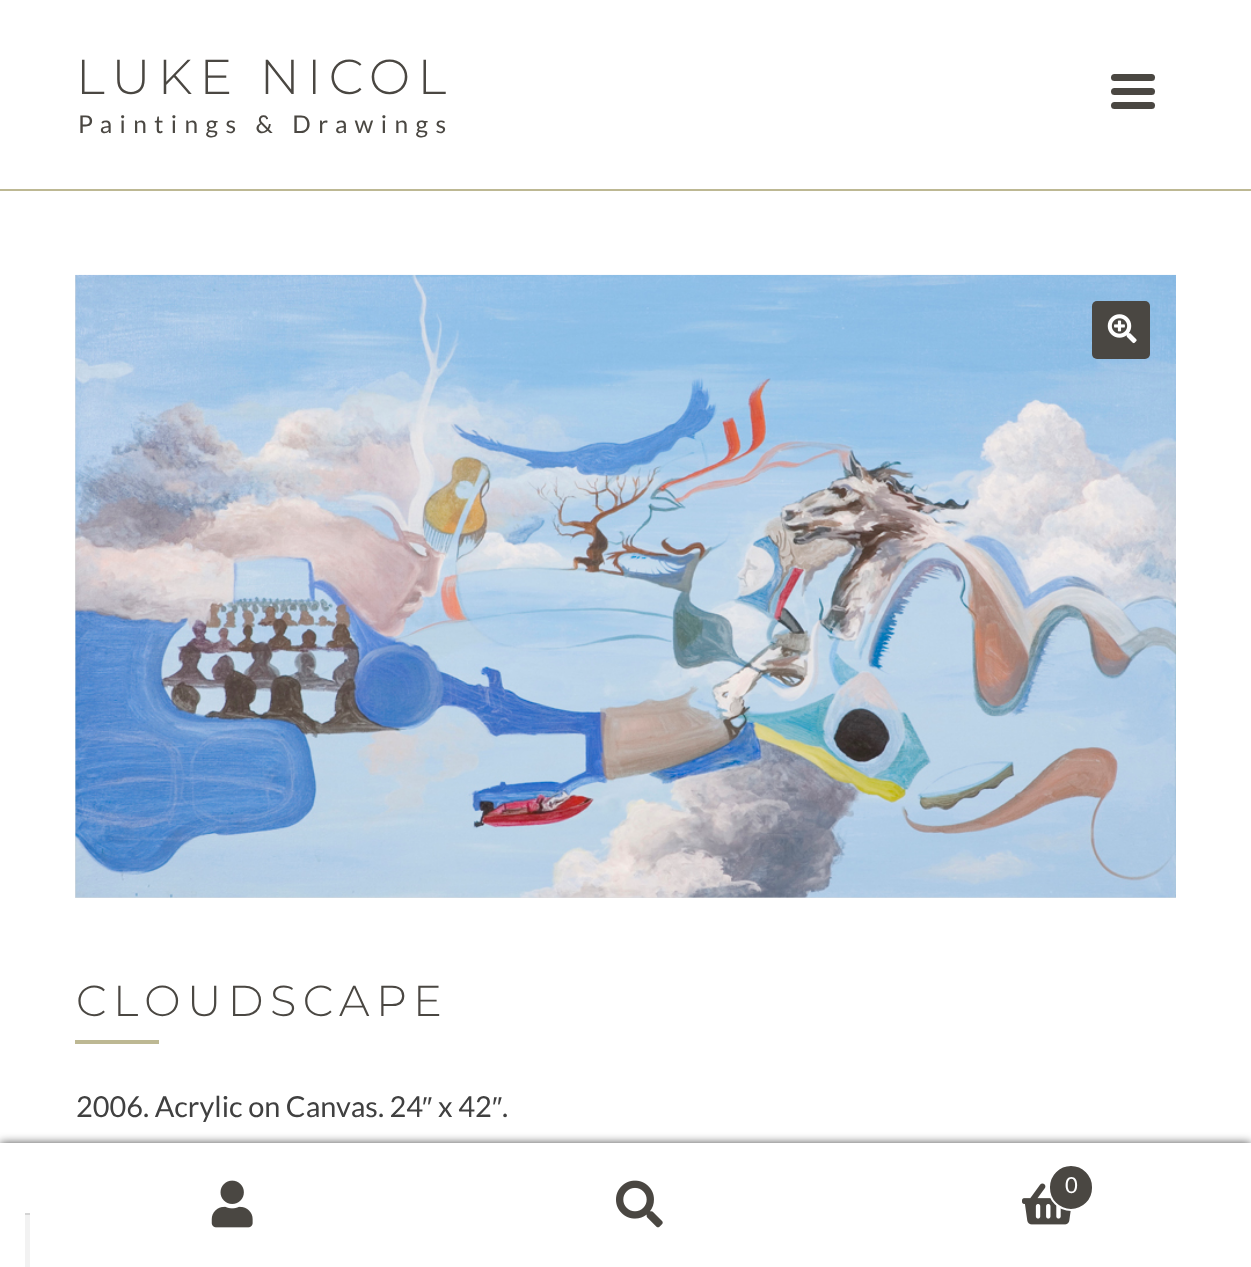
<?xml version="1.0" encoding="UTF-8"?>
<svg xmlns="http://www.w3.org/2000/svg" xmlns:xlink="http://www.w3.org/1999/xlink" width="1251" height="1267">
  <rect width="100%" height="100%" fill="#ffffff" />
  <rect y="189" width="1251" height="2" fill="#bdb893" />
  <rect x="1111" y="74" width="44" height="7" rx="3.5" fill="#4a4742" />
  <rect x="1111" y="88" width="44" height="7" rx="3.5" fill="#4a4742" />
  <rect x="1111" y="102" width="44" height="7" rx="3.5" fill="#4a4742" />
  <rect x="75" y="275" width="1101" height="623" fill="#dddddd" />
  <image x="75" y="274" width="1101" height="624" xlink:href="image1.png" />
  <rect x="1092" y="301" width="58" height="58" rx="5" fill="#4a4742" />
  <image x="1107" y="314" width="30" height="30" xlink:href="image2.png" />
  <rect x="75" y="1040" width="84" height="4" fill="#bdb893" />
  <rect y="1143" width="1251" height="124" fill="#000000" fill-opacity="0.7" filter="blur(5px)" />
  <rect y="1143" width="1251" height="124" fill="#ffffff" />
  <image x="616" y="1180" width="47" height="48" xlink:href="image3.png" />
  <rect x="25" y="1215" width="5" height="52" fill="#f2f2f2" />
  <rect x="25" y="1213" width="5" height="2" fill="#d4d4d4" />
  <image x="1022" y="1183" width="49" height="42" xlink:href="image4.png" />
  <rect x="1049" y="1165" width="44" height="45" rx="22" fill="#4a4742" stroke="#ffffff" stroke-width="2" />
  <image x="211" y="1180" width="42" height="48" xlink:href="image5.png" />
  <text x="76" y="94" style="font-family: Montserrat; font-size: 49px; font-weight: 300; letter-spacing: 7.4px; fill: #4a4742">LUKE NICOL</text>
  <text x="78" y="133" style="font-family: Lato; font-size: 24.5px; letter-spacing: 7.4px; fill: #4a4742">Paintings &amp; Drawings</text>
  <text x="76" y="1016" style="font-family: Montserrat; font-size: 43.25px; font-weight: 300; letter-spacing: 6.5px; fill: #4a4742">CLOUDSCAPE</text>
  <text x="76" y="1117" style="font-family: Lato; font-size: 28.9px; fill: #404040">2006. Acrylic on Canvas. 24</text>
  <text x="422" y="1117" style="font-family: Liberation Sans; font-size: 28.9px; fill: #404040">″</text>
  <text x="438" y="1117" style="font-family: Lato; font-size: 28.9px; fill: #404040">x 42</text>
  <text x="492" y="1117" style="font-family: Liberation Sans; font-size: 28.9px; fill: #404040">″</text>
  <text x="502" y="1117" style="font-family: Lato; font-size: 28.9px; fill: #404040">.</text>
  <text x="1065" y="1193" style="font-family: Lato; font-size: 22px; fill: #ffffff">0</text>
</svg>
